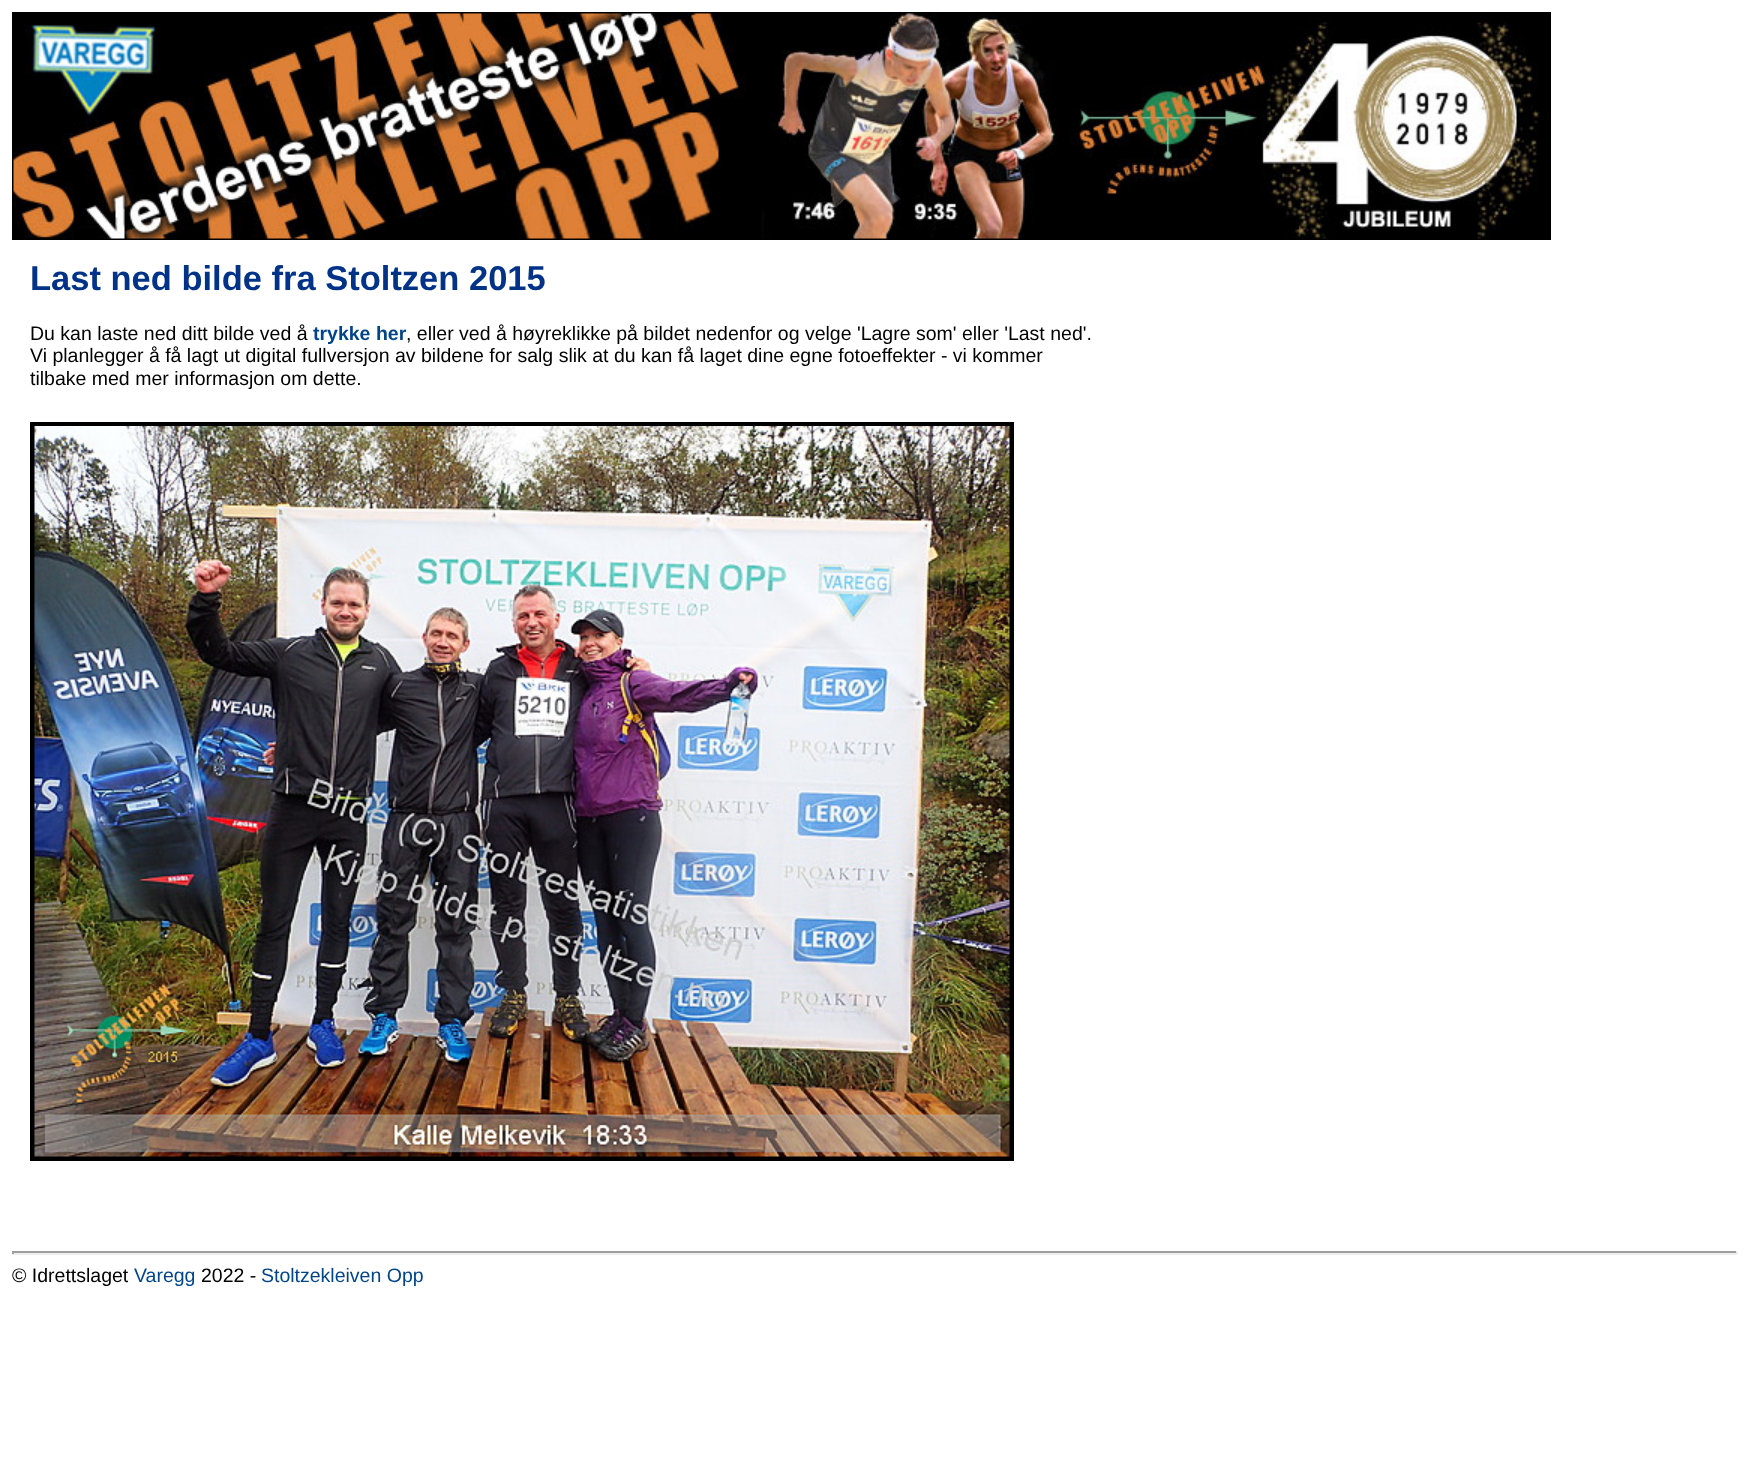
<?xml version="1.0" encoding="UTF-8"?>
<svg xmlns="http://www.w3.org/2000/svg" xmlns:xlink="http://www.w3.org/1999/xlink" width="1748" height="1468">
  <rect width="100%" height="100%" fill="#ffffff" />
  <rect x="13" y="13" width="1537" height="226" fill="none" stroke="#000000" stroke-width="2" />
  <image x="13" y="13" width="1536" height="226" xlink:href="image1.png" />
  <rect x="32.5" y="424.5" width="979" height="734" fill="none" stroke="#000000" stroke-width="5" />
  <image x="34" y="426" width="976" height="731" xlink:href="image2.png" />
  <rect x="12" y="1251" width="1725" height="2" fill="#9f9f9f" />
  <rect x="1736" y="1251" width="2" height="3" fill="#eeeeee" />
  <rect x="12" y="1253" width="1725" height="2" fill="#eeeeee" />
  <rect x="12" y="1251" width="2" height="3" fill="#9f9f9f" />
  <text x="30" y="290" style="font-family: Liberation Sans; font-size: 34.5px; font-weight: bold; fill: #003388">Last ned bilde fra Stoltzen 2015</text>
  <text x="30" y="340" style="font-family: Liberation Sans; font-size: 19.5px; fill: #000000">Du kan laste ned ditt bilde ved å</text>
  <text x="313" y="340" style="font-family: Liberation Sans; font-size: 19.5px; font-weight: bold; fill: #004488">trykke her</text>
  <text x="406" y="340" style="font-family: Liberation Sans; font-size: 19.5px; fill: #000000">, eller ved å høyreklikke på bildet nedenfor og velge 'Lagre som' eller 'Last ned'.</text>
  <text x="30" y="362" style="font-family: Liberation Sans; font-size: 19.5px; fill: #000000">Vi planlegger å få lagt ut digital fullversjon av bildene for salg slik at du kan få laget dine egne fotoeffekter - vi kommer</text>
  <text x="30" y="385" style="font-family: Liberation Sans; font-size: 19.5px; fill: #000000">tilbake med mer informasjon om dette.</text>
  <text x="12" y="1282" style="font-family: Liberation Sans; font-size: 19.5px; fill: #000000">© Idrettslaget</text>
  <text x="134" y="1282" style="font-family: Liberation Sans; font-size: 19.5px; fill: #004488">Varegg</text>
  <text x="201" y="1282" style="font-family: Liberation Sans; font-size: 19.5px; fill: #000000">2022 -</text>
  <text x="261" y="1282" style="font-family: Liberation Sans; font-size: 19.5px; fill: #004488">Stoltzekleiven Opp</text>
</svg>
